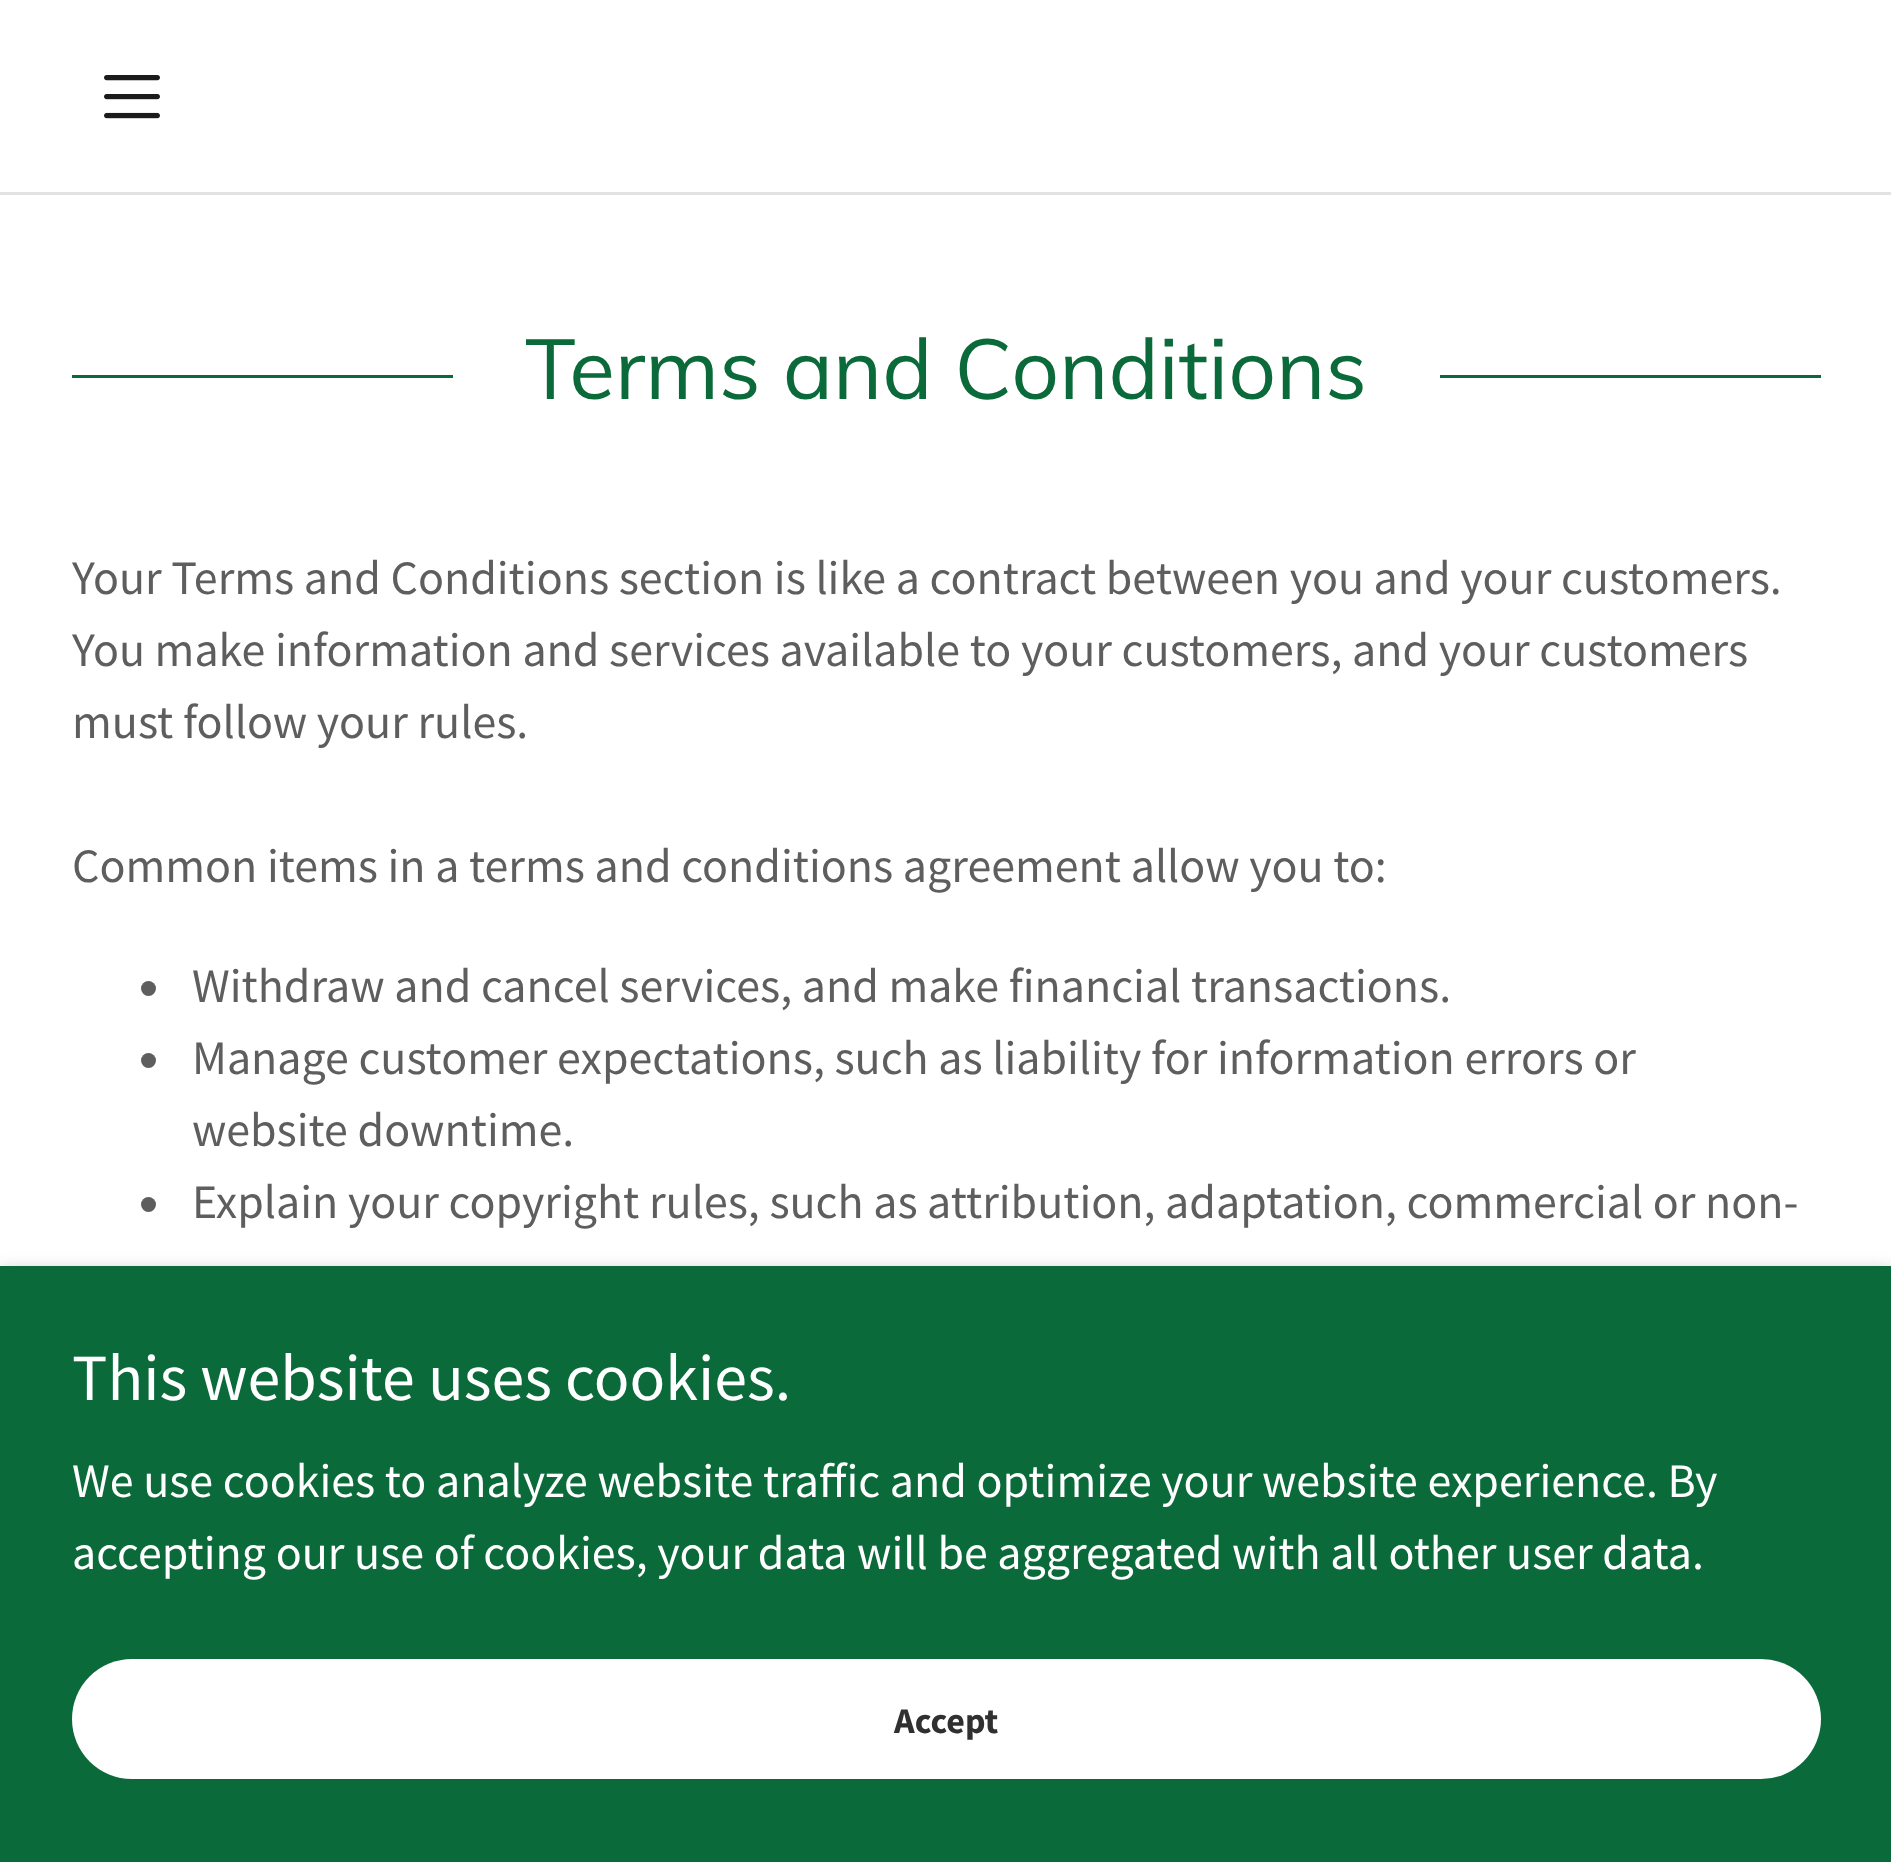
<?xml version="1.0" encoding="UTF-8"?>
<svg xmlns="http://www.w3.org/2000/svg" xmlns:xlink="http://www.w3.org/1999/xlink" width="1891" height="1862">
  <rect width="100%" height="100%" fill="#ffffff" />
  <image x="104" y="75" width="56" height="44" xlink:href="image1.png" />
  <rect y="192" width="1891" height="3" fill="#e2e2e2" />
  <rect x="72" y="375" width="381" height="3" fill="#0b6a39" />
  <rect x="1440" y="375" width="381" height="3" fill="#0b6a39" />
  <circle cx="148.5" cy="988.5" r="7.5" fill="#5e5e5e" />
  <circle cx="148.5" cy="1060.5" r="7.5" fill="#5e5e5e" />
  <circle cx="148.5" cy="1204.5" r="7.5" fill="#5e5e5e" />
  <rect y="1272" width="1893" height="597" fill="#000000" fill-opacity="0.3" filter="blur(9px)" />
  <rect y="1266" width="1891" height="596" fill="#0b6a39" />
  <rect x="72" y="1659" width="1749" height="120" rx="60" fill="#ffffff" />
  <text x="525" y="399" style="font-family: Muli; font-size: 84px; fill: #0b6a39">Terms and Conditions</text>
  <text x="72" y="594" style="font-family: Source Sans Pro; font-size: 48px; fill: #5e5e5e">Your Terms and Conditions section is like a contract between you and your customers.</text>
  <text x="72" y="666" style="font-family: Source Sans Pro; font-size: 48px; fill: #5e5e5e">You make information and services available to your customers, and your customers</text>
  <text x="72" y="738" style="font-family: Source Sans Pro; font-size: 48px; fill: #5e5e5e">must follow your rules.</text>
  <text x="72" y="882" style="font-family: Source Sans Pro; font-size: 48px; fill: #5e5e5e">Common items in a terms and conditions agreement allow you to:</text>
  <text x="192" y="1002" style="font-family: Source Sans Pro; font-size: 48px; fill: #5e5e5e">Withdraw and cancel services, and make financial transactions.</text>
  <text x="192" y="1074" style="font-family: Source Sans Pro; font-size: 48px; fill: #5e5e5e">Manage customer expectations, such as liability for information errors or</text>
  <text x="192" y="1146" style="font-family: Source Sans Pro; font-size: 48px; fill: #5e5e5e">website downtime.</text>
  <text x="192" y="1218" style="font-family: Source Sans Pro; font-size: 48px; fill: #5e5e5e">Explain your copyright rules, such as attribution, adaptation, commercial or non-</text>
  <text x="72" y="1400" style="font-family: Source Sans Pro; font-size: 66px; fill: #ffffff">This website uses cookies.</text>
  <text x="72" y="1497" style="font-family: Source Sans Pro; font-size: 48px; fill: #ffffff">We use cookies to analyze website traffic and optimize your website experience. By</text>
  <text x="72" y="1569" style="font-family: Source Sans Pro; font-size: 48px; fill: #ffffff">accepting our use of cookies, your data will be aggregated with all other user data.</text>
  <text x="894" y="1733" style="font-family: Source Sans Pro; font-size: 36px; font-weight: bold; fill: #303030">Accept</text>
</svg>
